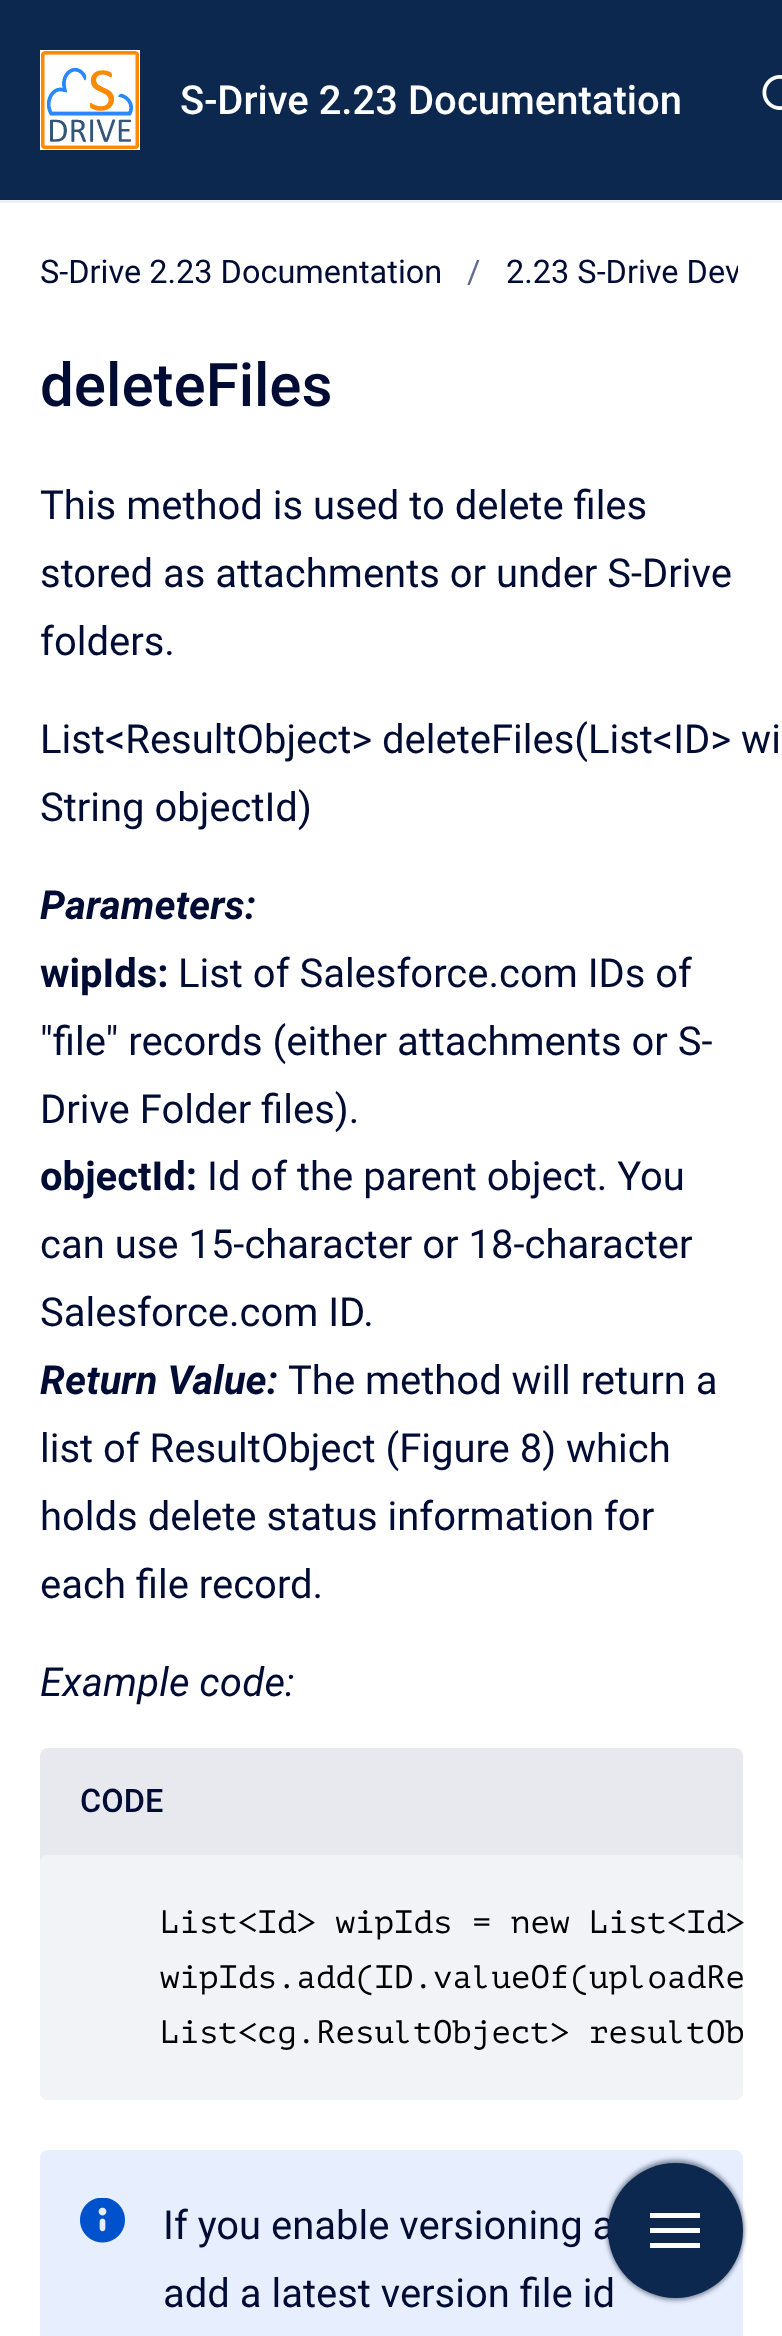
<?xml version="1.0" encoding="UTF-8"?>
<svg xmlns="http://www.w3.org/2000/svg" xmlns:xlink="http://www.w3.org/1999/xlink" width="782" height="2336">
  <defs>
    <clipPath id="clip1"><rect x="35" y="243" width="703" height="60" /></clipPath>
    <clipPath id="clip2"><rect x="40" y="1855" width="703" height="245" rx="8" /></clipPath>
  </defs>
  <rect width="100%" height="100%" fill="#ffffff" />
  <rect width="782" height="200" fill="#0d284f" />
  <rect y="200" width="782" height="3" fill="#eff0f4" />
  <image x="40" y="50" width="100" height="100" xlink:href="image1.png" />
  <image x="762" y="75" width="20" height="35" xlink:href="image2.png" />
  <rect x="40" y="1748" width="703" height="352" rx="8" fill="#e8e9ee" />
  <rect x="40" y="1855" width="703" height="245" rx="8" fill="#f2f3f7" />
  <rect x="40" y="2150" width="703" height="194" rx="8" fill="#e7efff" />
  <image x="80" y="2198" width="45" height="45" xlink:href="image3.png" />
  <rect x="608" y="2160" width="135" height="135" rx="67.5" fill="#7a869a" filter="blur(2.5px)" />
  <rect x="608" y="2165" width="135" height="135" rx="67.5" fill="#7a869a" filter="blur(2.5px)" />
  <text x="180" y="114" style="font-family: Roboto; font-size: 40px; font-weight: 500; fill: #ffffff">S-Drive 2.23 Documentation</text>
  <text x="40" y="283" style="font-family: Roboto; font-size: 32.5px; fill: #000c34">S-Drive 2.23 Documentation</text>
  <text x="467" y="283" style="font-family: Roboto; font-size: 32.5px; fill: #5d6b8f">/</text>
  <g clip-path="url(#clip1)">
    <text x="506" y="283" style="font-family: Roboto; font-size: 32.5px; fill: #000c34">2.23 S-Drive Dev</text>
  </g>
  <text x="40" y="406" style="font-family: Roboto; font-size: 60px; font-weight: 500; fill: #000c34">deleteFiles</text>
  <text x="40" y="519" style="font-family: Roboto; font-size: 40px; fill: #000c34">This method is used to delete files</text>
  <text x="40" y="587" style="font-family: Roboto; font-size: 40px; fill: #000c34">stored as attachments or under S-Drive</text>
  <text x="40" y="655" style="font-family: Roboto; font-size: 40px; fill: #000c34">folders.</text>
  <text x="40" y="753" style="font-family: Roboto; font-size: 40px; fill: #000c34">List&lt;ResultObject&gt; deleteFiles(List&lt;ID&gt; wi</text>
  <text x="40" y="821" style="font-family: Roboto; font-size: 40px; fill: #000c34">String objectId)</text>
  <text x="40" y="919" style="font-family: Roboto; font-size: 40px; font-weight: bold; font-style: italic; fill: #000c34">Parameters:</text>
  <text x="40" y="987" style="font-family: Roboto; font-size: 40px; font-weight: bold; fill: #000c34">wipIds:</text>
  <text x="178" y="987" style="font-family: Roboto; font-size: 40px; fill: #000c34">List of Salesforce.com IDs of</text>
  <text x="40" y="1055" style="font-family: Roboto; font-size: 40px; fill: #000c34">"file" records (either attachments or S-</text>
  <text x="40" y="1123" style="font-family: Roboto; font-size: 40px; fill: #000c34">Drive Folder files).</text>
  <text x="40" y="1190" style="font-family: Roboto; font-size: 40px; font-weight: bold; fill: #000c34">objectId:</text>
  <text x="207" y="1190" style="font-family: Roboto; font-size: 40px; fill: #000c34">Id of the parent object. You</text>
  <text x="40" y="1258" style="font-family: Roboto; font-size: 40px; fill: #000c34">can use 15-character or 18-character</text>
  <text x="40" y="1326" style="font-family: Roboto; font-size: 40px; fill: #000c34">Salesforce.com ID.</text>
  <text x="40" y="1394" style="font-family: Roboto; font-size: 40px; font-weight: bold; font-style: italic; fill: #000c34">Return Value:</text>
  <text x="288" y="1394" style="font-family: Roboto; font-size: 40px; fill: #000c34">The method will return a</text>
  <text x="40" y="1462" style="font-family: Roboto; font-size: 40px; fill: #000c34">list of ResultObject (Figure 8) which</text>
  <text x="40" y="1530" style="font-family: Roboto; font-size: 40px; fill: #000c34">holds delete status information for</text>
  <text x="40" y="1598" style="font-family: Roboto; font-size: 40px; fill: #000c34">each file record.</text>
  <text x="40" y="1696" style="font-family: Roboto; font-size: 40px; font-style: italic; fill: #000c34">Example code:</text>
  <text x="80" y="1812" style="font-family: Roboto; font-size: 32.5px; font-weight: 500; fill: #000c34">CODE</text>
  <text x="160" y="1933" style="font-family: PT Mono; font-size: 32.5px; fill: #000000">List&lt;Id&gt; wipIds = new List&lt;Id&gt;</text>
  <text x="160" y="1988" style="font-family: PT Mono; font-size: 32.5px; fill: #000000">wipIds.add(ID.valueOf(uploadRe</text>
  <g clip-path="url(#clip2)">
    <text x="160" y="2043" style="font-family: PT Mono; font-size: 32.5px; fill: #000000">List&lt;cg.ResultObject&gt; resultOb</text>
  </g>
  <text x="163" y="2239" style="font-family: Roboto; font-size: 40px; fill: #000c34">If you enable versioning a</text>
  <text x="163" y="2307" style="font-family: Roboto; font-size: 40px; fill: #000c34">add a latest version file id</text>
  <circle cx="675.5" cy="2230.5" r="67.5" fill="#0d284f" />
  <rect x="650" y="2213" width="50" height="5" fill="#ffffff" />
  <rect x="650" y="2228" width="50" height="5" fill="#ffffff" />
  <rect x="650" y="2243" width="50" height="5" fill="#ffffff" />
</svg>
